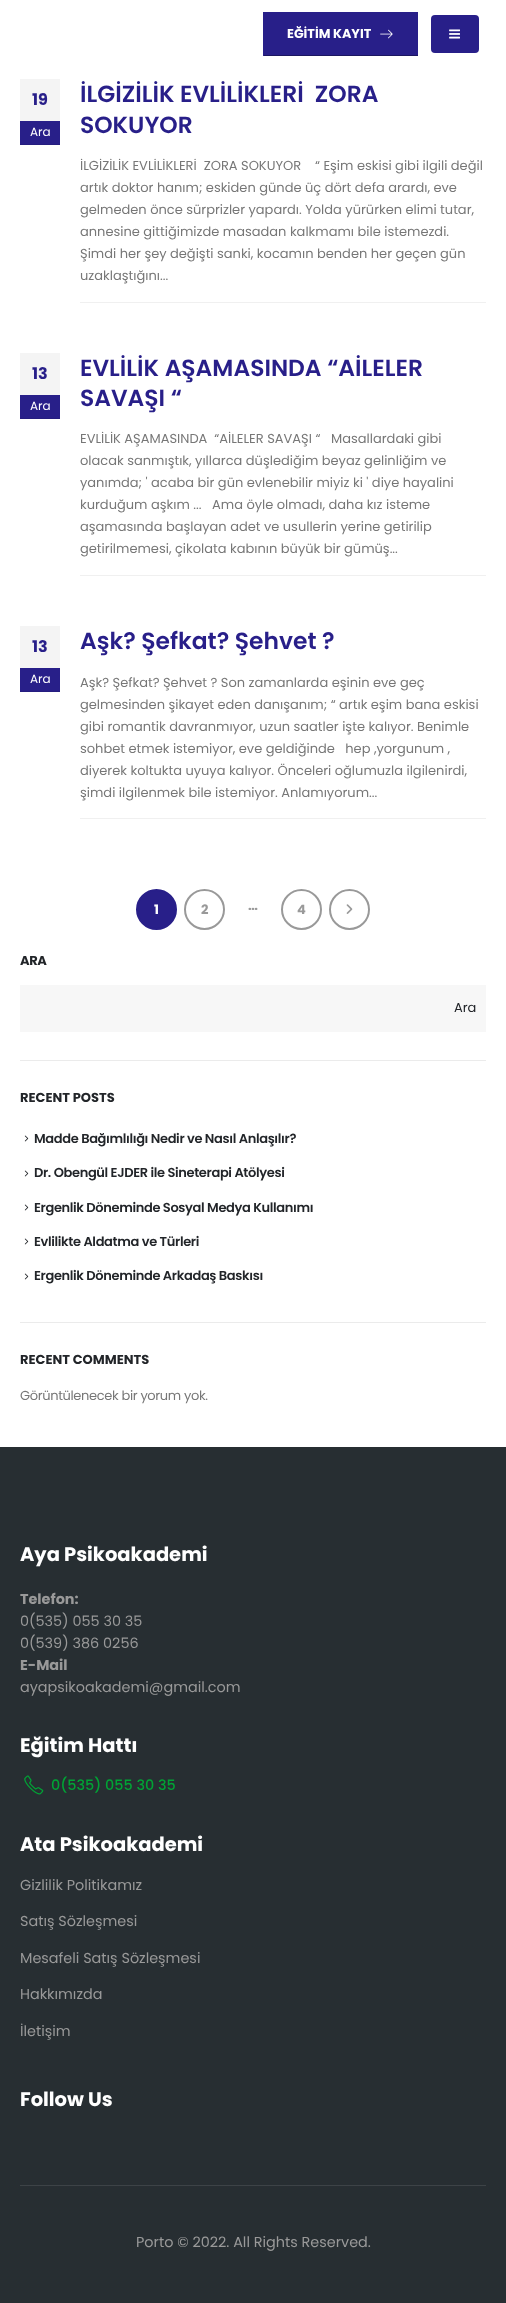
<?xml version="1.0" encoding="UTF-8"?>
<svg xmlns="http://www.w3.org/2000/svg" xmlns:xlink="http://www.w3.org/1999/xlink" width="506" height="2303">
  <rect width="100%" height="100%" fill="#ffffff" />
  <rect x="264" y="12" width="154" height="43" fill="#281f89" />
  <rect x="263" y="55" width="155" height="1" fill="#1c1660" />
  <rect x="263" y="12" width="1" height="44" fill="#281f89" />
  <image x="380" y="29" width="13" height="10" xlink:href="image1.png" />
  <rect x="431" y="15" width="48" height="38" rx="4" fill="#281f89" />
  <image x="449" y="29" width="11" height="10" xlink:href="image2.png" />
  <rect x="80" y="302" width="406" height="1" fill="#f0f0f0" />
  <rect x="20" y="121" width="40" height="23" fill="#281f89" />
  <rect x="20" y="79" width="40" height="42" fill="#f4f4f4" />
  <rect x="20" y="144" width="40" height="1" fill="#251d7f" />
  <rect x="80" y="575" width="406" height="1" fill="#f0f0f0" />
  <rect x="20" y="395" width="40" height="23" fill="#281f89" />
  <rect x="20" y="353" width="40" height="42" fill="#f4f4f4" />
  <rect x="20" y="418" width="40" height="1" fill="#251d7f" />
  <rect x="80" y="818" width="406" height="1" fill="#f0f0f0" />
  <rect x="20" y="668" width="40" height="23" fill="#281f89" />
  <rect x="20" y="626" width="40" height="42" fill="#f4f4f4" />
  <rect x="20" y="691" width="40" height="1" fill="#251d7f" />
  <circle cx="156.5" cy="909.5" r="19.5" fill="#281f89" stroke="#281f89" stroke-width="2" />
  <circle cx="204.5" cy="909.5" r="19.5" fill="none" stroke="#999999" stroke-width="2" />
  <circle cx="301.5" cy="909.5" r="19.5" fill="none" stroke="#999999" stroke-width="2" />
  <circle cx="349.5" cy="909.5" r="19.5" fill="none" stroke="#999999" stroke-width="2" />
  <image x="346" y="904" width="7" height="10" xlink:href="image3.png" />
  <rect x="20" y="985" width="466" height="47" fill="#f7f7f7" />
  <rect x="20" y="1060" width="466" height="1" fill="#ebebeb" />
  <image x="24" y="1135" width="5" height="7" xlink:href="image4.png" />
  <image x="24" y="1170" width="5" height="7" xlink:href="image4.png" />
  <image x="24" y="1204" width="5" height="7" xlink:href="image4.png" />
  <image x="24" y="1238" width="5" height="7" xlink:href="image4.png" />
  <image x="24" y="1273" width="5" height="7" xlink:href="image4.png" />
  <rect x="20" y="1322" width="466" height="1" fill="#ebebeb" />
  <rect y="1447" width="506" height="856" fill="#272e32" />
  <image x="24" y="1775" width="20" height="20" xlink:href="image5.png" />
  <rect x="20" y="2185" width="466" height="1" fill="#3d4347" />
  <text x="287" y="38" style="font-family: Poppins; font-size: 12.75px; font-weight: bold; fill: #ffffff">EĞİTİM KAYIT</text>
  <text x="32" y="105" style="font-family: Poppins; font-size: 16px; font-weight: bold; fill: #281f89">19</text>
  <text x="30" y="136" style="font-family: Poppins; font-size: 12px; fill: #ffffff">Ara</text>
  <text x="80" y="102" style="font-family: Poppins; font-size: 23.4px; font-weight: 600; fill: #281f89" xml:space="preserve">İLGİZİLİK EVLİLİKLERİ  ZORA</text>
  <text x="80" y="133" style="font-family: Poppins; font-size: 23.4px; font-weight: 600; fill: #281f89">SOKUYOR</text>
  <text x="80" y="170" style="font-family: Poppins; font-size: 13px; fill: #777777" xml:space="preserve">İLGİZİLİK EVLİLİKLERİ  ZORA SOKUYOR</text>
  <text x="315" y="170" style="font-family: Poppins; font-size: 13px; fill: #777777">“ Eşim eskisi gibi ilgili değil</text>
  <text x="80" y="192" style="font-family: Poppins; font-size: 13px; fill: #777777">artık doktor hanım; eskiden günde üç dört defa arardı, eve</text>
  <text x="80" y="214" style="font-family: Poppins; font-size: 13px; fill: #777777">gelmeden önce sürprizler yapardı. Yolda yürürken elimi tutar,</text>
  <text x="80" y="236" style="font-family: Poppins; font-size: 13px; fill: #777777">annesine gittiğimizde masadan kalkmamı bile istemezdi.</text>
  <text x="80" y="258" style="font-family: Poppins; font-size: 13px; fill: #777777">Şimdi her şey değişti sanki, kocamın benden her geçen gün</text>
  <text x="80" y="280" style="font-family: Poppins; font-size: 13px; fill: #777777">uzaklaştığını...</text>
  <text x="32" y="379" style="font-family: Poppins; font-size: 16px; font-weight: bold; fill: #281f89">13</text>
  <text x="30" y="410" style="font-family: Poppins; font-size: 12px; fill: #ffffff">Ara</text>
  <text x="80" y="376" style="font-family: Poppins; font-size: 23.4px; font-weight: 600; fill: #281f89">EVLİLİK AŞAMASINDA “AİLELER</text>
  <text x="80" y="406" style="font-family: Poppins; font-size: 23.4px; font-weight: 600; fill: #281f89">SAVAŞI “</text>
  <text x="80" y="443" style="font-family: Poppins; font-size: 13px; fill: #777777" xml:space="preserve">EVLİLİK AŞAMASINDA  “AİLELER SAVAŞI “</text>
  <text x="331" y="443" style="font-family: Poppins; font-size: 13px; fill: #777777">Masallardaki gibi</text>
  <text x="80" y="465" style="font-family: Poppins; font-size: 13px; fill: #777777">olacak sanmıştık, yıllarca düşlediğim beyaz gelinliğim ve</text>
  <text x="80" y="487" style="font-family: Poppins; font-size: 13px; fill: #777777">yanımda; ' acaba bir gün evlenebilir miyiz ki ' diye hayalini</text>
  <text x="80" y="509" style="font-family: Poppins; font-size: 13px; fill: #777777">kurduğum aşkım ...</text>
  <text x="212" y="509" style="font-family: Poppins; font-size: 13px; fill: #777777">Ama öyle olmadı, daha kız isteme</text>
  <text x="80" y="531" style="font-family: Poppins; font-size: 13px; fill: #777777">aşamasında başlayan adet ve usullerin yerine getirilip</text>
  <text x="80" y="553" style="font-family: Poppins; font-size: 13px; fill: #777777">getirilmemesi, çikolata kabının büyük bir gümüş...</text>
  <text x="32" y="652" style="font-family: Poppins; font-size: 16px; font-weight: bold; fill: #281f89">13</text>
  <text x="30" y="683" style="font-family: Poppins; font-size: 12px; fill: #ffffff">Ara</text>
  <text x="80" y="649" style="font-family: Poppins; font-size: 23.4px; font-weight: 600; fill: #281f89">Aşk? Şefkat? Şehvet ?</text>
  <text x="80" y="687" style="font-family: Poppins; font-size: 13px; fill: #777777">Aşk? Şefkat? Şehvet ? Son zamanlarda eşinin eve geç</text>
  <text x="80" y="709" style="font-family: Poppins; font-size: 13px; fill: #777777">gelmesinden şikayet eden danışanım; “ artık eşim bana eskisi</text>
  <text x="80" y="731" style="font-family: Poppins; font-size: 13px; fill: #777777">gibi romantik davranmıyor, uzun saatler işte kalıyor. Benimle</text>
  <text x="80" y="753" style="font-family: Poppins; font-size: 13px; fill: #777777" xml:space="preserve">sohbet etmek istemiyor, eve geldiğinde   hep ,yorgunum ,</text>
  <text x="80" y="775" style="font-family: Poppins; font-size: 13px; fill: #777777">diyerek koltukta uyuya kalıyor. Önceleri oğlumuzla ilgilenirdi,</text>
  <text x="80" y="797" style="font-family: Poppins; font-size: 13px; fill: #777777">şimdi ilgilenmek bile istemiyor. Anlamıyorum...</text>
  <text x="154" y="914" style="font-family: Poppins; font-size: 13px; font-weight: bold; fill: #ffffff">1</text>
  <text x="201" y="914" style="font-family: Poppins; font-size: 13px; font-weight: bold; fill: #999999">2</text>
  <text x="248" y="910" style="font-family: Poppins; font-size: 13px; font-weight: bold; fill: #999999">…</text>
  <text x="297" y="914" style="font-family: Poppins; font-size: 13px; font-weight: bold; fill: #999999">4</text>
  <text x="20" y="965" style="font-family: Poppins; font-size: 13px; font-weight: bold; letter-spacing: -0.35px; fill: #222529">ARA</text>
  <text x="454" y="1012" style="font-family: Poppins; font-size: 13px; fill: #222529">Ara</text>
  <text x="20" y="1102" style="font-family: Poppins; font-size: 13px; font-weight: bold; fill: #222529">RECENT POSTS</text>
  <text x="34" y="1143" style="font-family: Poppins; font-size: 13px; font-weight: 600; letter-spacing: -0.35px; fill: #222529">Madde Bağımlılığı Nedir ve Nasıl Anlaşılır?</text>
  <text x="34" y="1177" style="font-family: Poppins; font-size: 13px; font-weight: 600; letter-spacing: -0.35px; fill: #222529">Dr. Obengül EJDER ile Sineterapi Atölyesi</text>
  <text x="34" y="1212" style="font-family: Poppins; font-size: 13px; font-weight: 600; letter-spacing: -0.35px; fill: #222529">Ergenlik Döneminde Sosyal Medya Kullanımı</text>
  <text x="34" y="1246" style="font-family: Poppins; font-size: 13px; font-weight: 600; letter-spacing: -0.35px; fill: #222529">Evlilikte Aldatma ve Türleri</text>
  <text x="34" y="1280" style="font-family: Poppins; font-size: 13px; font-weight: 600; letter-spacing: -0.35px; fill: #222529">Ergenlik Döneminde Arkadaş Baskısı</text>
  <text x="20" y="1364" style="font-family: Poppins; font-size: 13px; font-weight: bold; fill: #222529">RECENT COMMENTS</text>
  <text x="20" y="1400" style="font-family: Poppins; font-size: 13px; letter-spacing: -0.35px; fill: #777777">Görüntülenecek bir yorum yok.</text>
  <text x="20" y="1561" style="font-family: Poppins; font-size: 19.5px; font-weight: bold; fill: #ffffff">Aya Psikoakademi</text>
  <text x="20" y="1604" style="font-family: Poppins; font-size: 14.4px; font-weight: bold; fill: #999999">Telefon:</text>
  <text x="20" y="1626" style="font-family: Poppins; font-size: 14.4px; fill: #999999">0(535) 055 30 35</text>
  <text x="20" y="1648" style="font-family: Poppins; font-size: 14.4px; fill: #999999">0(539) 386 0256</text>
  <text x="20" y="1670" style="font-family: Poppins; font-size: 14.4px; font-weight: bold; fill: #999999">E-Mail</text>
  <text x="20" y="1692" style="font-family: Poppins; font-size: 14.4px; fill: #999999">ayapsikoakademi@gmail.com</text>
  <text x="20" y="1752" style="font-family: Poppins; font-size: 19.5px; font-weight: bold; fill: #ffffff">Eğitim Hattı</text>
  <text x="51" y="1790" style="font-family: Poppins; font-size: 14.4px; font-weight: 500; fill: #00a335">0(535) 055 30 35</text>
  <text x="20" y="1851" style="font-family: Poppins; font-size: 19.5px; font-weight: bold; fill: #ffffff">Ata Psikoakademi</text>
  <text x="20" y="1890" style="font-family: Poppins; font-size: 14.4px; fill: #999999">Gizlilik Politikamız</text>
  <text x="20" y="1926" style="font-family: Poppins; font-size: 14.4px; fill: #999999">Satış Sözleşmesi</text>
  <text x="20" y="1963" style="font-family: Poppins; font-size: 14.4px; fill: #999999">Mesafeli Satış Sözleşmesi</text>
  <text x="20" y="1999" style="font-family: Poppins; font-size: 14.4px; fill: #999999">Hakkımızda</text>
  <text x="20" y="2036" style="font-family: Poppins; font-size: 14.4px; fill: #999999">İletişim</text>
  <text x="20" y="2106" style="font-family: Poppins; font-size: 19.5px; font-weight: bold; fill: #ffffff">Follow Us</text>
  <text x="136" y="2247" style="font-family: Poppins; font-size: 14.4px; fill: #999999">Porto © 2022. All Rights Reserved.</text>
</svg>
